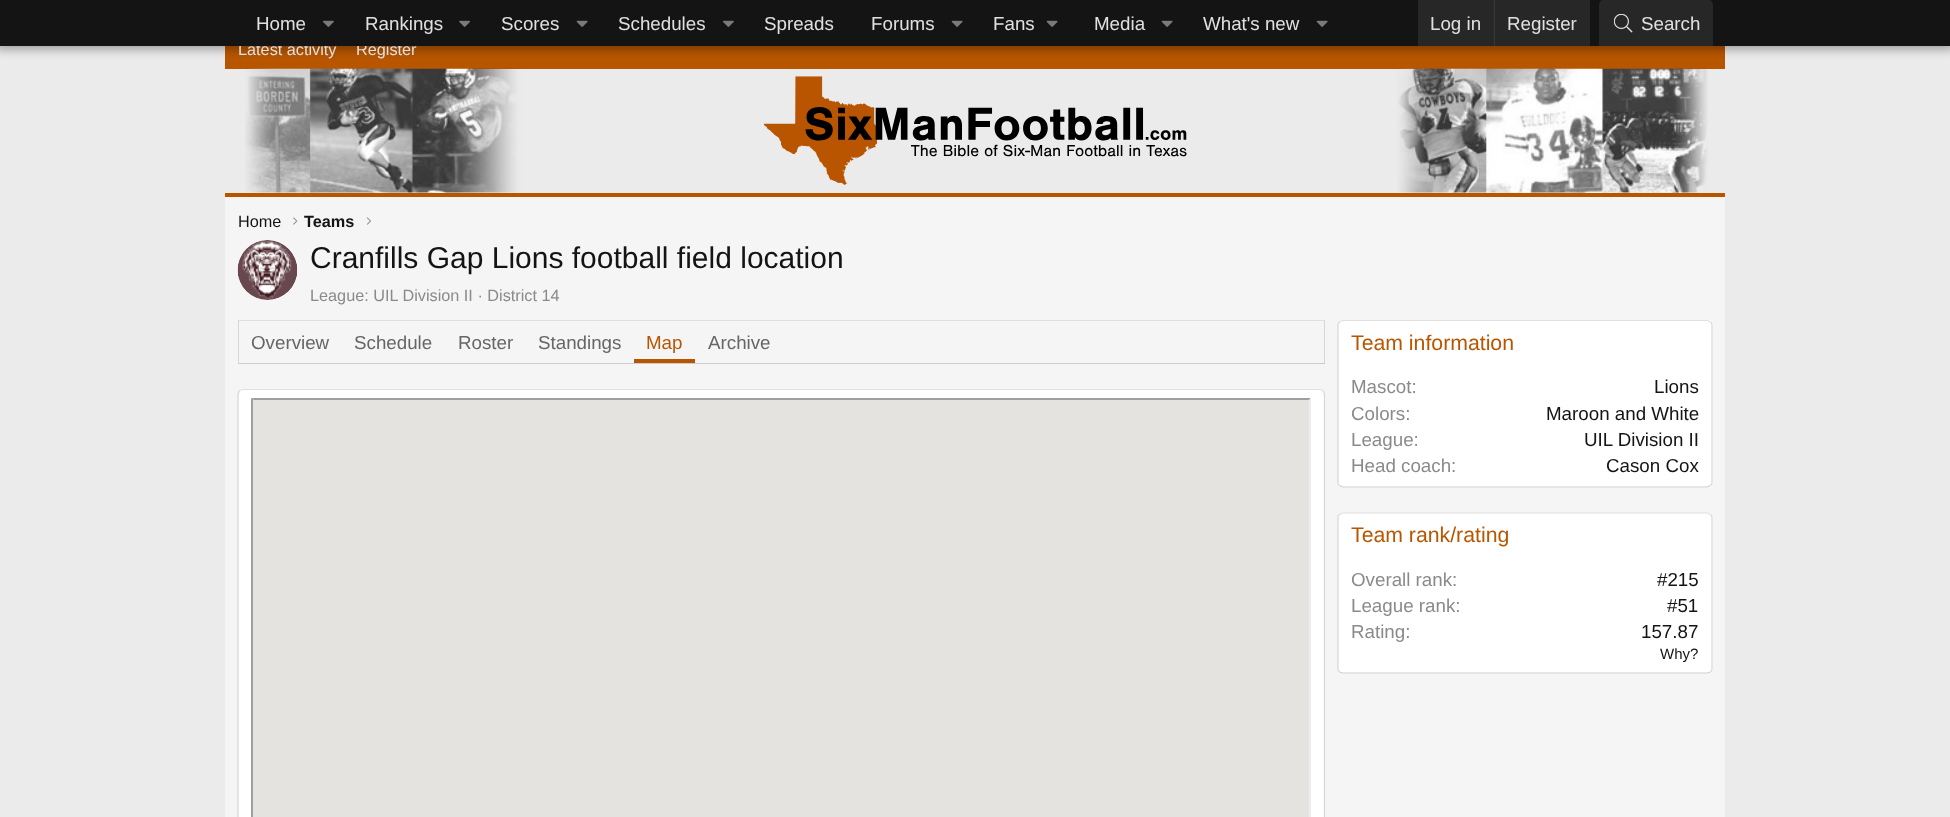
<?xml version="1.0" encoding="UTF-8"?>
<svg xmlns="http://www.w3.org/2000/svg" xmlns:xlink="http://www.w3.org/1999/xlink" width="1950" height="817">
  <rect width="100%" height="100%" fill="#ebebeb" />
  <rect x="225" y="46" width="1500" height="23" fill="#b85600" />
  <rect x="-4" y="-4" width="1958" height="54" fill="#000000" fill-opacity="0.3" filter="blur(5px)" />
  <image x="245" y="68" width="1463" height="125" xlink:href="image5.png" />
  <image x="764" y="76" width="423" height="109" xlink:href="image6.png" />
  <rect x="225" y="197" width="1500" height="620" fill="#f5f5f5" />
  <rect x="225" y="193" width="1500" height="4" fill="#b85600" />
  <image x="293" y="217" width="5" height="8" xlink:href="image7.png" />
  <image x="366" y="217" width="5" height="8" xlink:href="image8.png" />
  <circle cx="268" cy="270" r="30" fill="#ffffff" />
  <image x="237" y="240" width="61" height="60" xlink:href="image9.png" />
  <rect x="238" y="320" width="1087" height="1" fill="#e0e0e0" />
  <rect x="1324" y="320" width="1" height="44" fill="#d6d6d6" />
  <rect x="238" y="363" width="1087" height="1" fill="#cccccc" />
  <rect x="238" y="320" width="1" height="44" fill="#d6d6d6" />
  <rect x="634" y="359" width="61" height="4" fill="#b85600" />
  <rect x="238" y="389" width="1087" height="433" rx="5" fill="#ffffff" />
  <path d="M 239.5 390.5 l 3 -1 h 1077.5 l 3 1" fill="none" stroke="#e0e0e0" stroke-width="1.2" />
  <path d="M 1323 390.5 l 1.5 3.5 v 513.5 l -1.5 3" fill="none" stroke="#d6d6d6" stroke-width="1.2" />
  <path d="M 239.5 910.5 l -1.5 -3 v -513.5 l 1.5 -3.5" fill="none" stroke="#d6d6d6" stroke-width="1.2" />
  <path d="M 251 398 h 1060 l -2 2 h -1055 z" fill="#9f9f9f" />
  <path d="M 251 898 v -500 l 3 2 v 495 z" fill="#9f9f9f" />
  <rect x="253" y="400" width="1056" height="417" fill="#e5e3df" />
  <path d="M 1311 398 v 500 l -2 -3 v -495 z" fill="#eeeeee" />
  <rect x="1338" y="320" width="375" height="168" rx="5" fill="#ffffff" />
  <path d="M 1339.5 322 l 3 -1.5 h 365 l 3 1.5" fill="none" stroke="#e0e0e0" stroke-width="1.2" />
  <path d="M 1710.5 322 c 1 0.5 1.5 2 1.5 3 v 157.5 c 0 1 -0.5 2.5 -1.5 3" fill="none" stroke="#d6d6d6" stroke-width="1.2" />
  <path d="M 1710.5 485.5 l -3 1.5 h -365 l -3 -1.5" fill="none" stroke="#cccccc" stroke-width="1.2" />
  <path d="M 1339.5 485.5 c -1 -0.5 -1.5 -2 -1.5 -3 v -157.5 c 0 -1 0.5 -2.5 1.5 -3" fill="none" stroke="#d6d6d6" stroke-width="1.2" />
  <rect x="1338" y="513" width="375" height="161" rx="5" fill="#ffffff" />
  <path d="M 1339.5 514.5 l 3 -1.5 h 365 l 3 1.5" fill="none" stroke="#e0e0e0" stroke-width="1.2" />
  <path d="M 1710.5 514.5 c 1 0.5 1.5 2 1.5 3 v 151.5 c 0 1 -0.5 2 -1.5 3" fill="none" stroke="#d6d6d6" stroke-width="1.2" />
  <path d="M 1710.5 672 l -3 1 h -365 l -3 -1" fill="none" stroke="#cccccc" stroke-width="1.2" />
  <path d="M 1339.5 672 c -1 -1 -1.5 -2 -1.5 -3 v -151.5 c 0 -1 0.5 -2.5 1.5 -3" fill="none" stroke="#d6d6d6" stroke-width="1.2" />
  <text x="238" y="55" style="font-family: Liberation Sans; font-size: 16.25px; fill: #e0e0e0">Latest activity</text>
  <text x="356" y="55" style="font-family: Liberation Sans; font-size: 16.25px; fill: #e0e0e0">Register</text>
  <rect width="1950" height="46" fill="#141414" />
  <path d="M 1604 0 h 104 c 3 0 5 2 5 5 v 41 h -114 v -41 c 0 -3 2 -5 5 -5 z" fill="#272727" />
  <image x="1614" y="14" width="19" height="19" xlink:href="image4.png" />
  <image x="1316" y="20" width="12" height="7" xlink:href="image3.png" />
  <image x="1161" y="20" width="12" height="7" xlink:href="image3.png" />
  <image x="1046" y="20" width="12" height="7" xlink:href="image3.png" />
  <image x="951" y="20" width="12" height="7" xlink:href="image3.png" />
  <image x="723" y="20" width="11" height="7" xlink:href="image1.png" />
  <image x="576" y="20" width="12" height="7" xlink:href="image3.png" />
  <image x="459" y="20" width="11" height="7" xlink:href="image2.png" />
  <image x="323" y="20" width="11" height="7" xlink:href="image1.png" />
  <text x="1203" y="30" style="font-family: Liberation Sans; font-size: 18.75px; fill: #e0e0e0">What's new</text>
  <text x="1094" y="30" style="font-family: Liberation Sans; font-size: 18.75px; fill: #e0e0e0">Media</text>
  <text x="993" y="30" style="font-family: Liberation Sans; font-size: 18.75px; fill: #e0e0e0">Fans</text>
  <text x="871" y="30" style="font-family: Liberation Sans; font-size: 18.75px; fill: #e0e0e0">Forums</text>
  <text x="764" y="30" style="font-family: Liberation Sans; font-size: 18.75px; fill: #e0e0e0">Spreads</text>
  <text x="618" y="30" style="font-family: Liberation Sans; font-size: 18.75px; fill: #e0e0e0">Schedules</text>
  <text x="501" y="30" style="font-family: Liberation Sans; font-size: 18.75px; fill: #e0e0e0">Scores</text>
  <text x="365" y="30" style="font-family: Liberation Sans; font-size: 18.75px; fill: #e0e0e0">Rankings</text>
  <text x="256" y="30" style="font-family: Liberation Sans; font-size: 18.75px; fill: #e0e0e0">Home</text>
  <text x="1641" y="30" style="font-family: Liberation Sans; font-size: 18.75px; fill: #e0e0e0">Search</text>
  <rect x="1418" width="172" height="46" fill="#272727" />
  <text x="1507" y="30" style="font-family: Liberation Sans; font-size: 18.75px; fill: #e0e0e0">Register</text>
  <rect x="1494" width="1" height="46" fill="#383838" />
  <text x="1430" y="30" style="font-family: Liberation Sans; font-size: 18.75px; fill: #e0e0e0">Log in</text>
  <text x="238" y="227" style="font-family: Liberation Sans; font-size: 16.25px; fill: #141414">Home</text>
  <text x="304" y="227" style="font-family: Liberation Sans; font-size: 16.25px; font-weight: bold; fill: #141414">Teams</text>
  <text x="310" y="268" style="font-family: Liberation Sans; font-size: 30px; fill: #141414">Cranfills Gap Lions football field location</text>
  <text x="310" y="301" style="font-family: Liberation Sans; font-size: 16.25px; fill: #8a8a8a">League: UIL Division II · District 14</text>
  <text x="251" y="349" style="font-family: Liberation Sans; font-size: 18.75px; fill: #666666">Overview</text>
  <text x="354" y="349" style="font-family: Liberation Sans; font-size: 18.75px; fill: #666666">Schedule</text>
  <text x="458" y="349" style="font-family: Liberation Sans; font-size: 18.75px; fill: #666666">Roster</text>
  <text x="538" y="349" style="font-family: Liberation Sans; font-size: 18.75px; fill: #666666">Standings</text>
  <text x="646" y="349" style="font-family: Liberation Sans; font-size: 18.75px; fill: #b85600">Map</text>
  <text x="708" y="349" style="font-family: Liberation Sans; font-size: 18.75px; fill: #666666">Archive</text>
  <text x="1351" y="350" style="font-family: Liberation Sans; font-size: 21.25px; fill: #b85600">Team information</text>
  <text x="1351" y="393" style="font-family: Liberation Sans; font-size: 18.75px; fill: #8a8a8a">Mascot:</text>
  <text x="1654" y="393" style="font-family: Liberation Sans; font-size: 18.75px; fill: #141414">Lions</text>
  <text x="1351" y="420" style="font-family: Liberation Sans; font-size: 18.75px; fill: #8a8a8a">Colors:</text>
  <text x="1546" y="420" style="font-family: Liberation Sans; font-size: 18.75px; fill: #141414">Maroon and White</text>
  <text x="1351" y="446" style="font-family: Liberation Sans; font-size: 18.75px; fill: #8a8a8a">League:</text>
  <text x="1584" y="446" style="font-family: Liberation Sans; font-size: 18.75px; fill: #141414">UIL Division II</text>
  <text x="1351" y="472" style="font-family: Liberation Sans; font-size: 18.75px; fill: #8a8a8a">Head coach:</text>
  <text x="1606" y="472" style="font-family: Liberation Sans; font-size: 18.75px; fill: #141414">Cason Cox</text>
  <text x="1351" y="542" style="font-family: Liberation Sans; font-size: 21.25px; fill: #b85600">Team rank/rating</text>
  <text x="1351" y="586" style="font-family: Liberation Sans; font-size: 18.75px; fill: #8a8a8a">Overall rank:</text>
  <text x="1657" y="586" style="font-family: Liberation Sans; font-size: 18.75px; fill: #141414">#215</text>
  <text x="1351" y="612" style="font-family: Liberation Sans; font-size: 18.75px; fill: #8a8a8a">League rank:</text>
  <text x="1667" y="612" style="font-family: Liberation Sans; font-size: 18.75px; fill: #141414">#51</text>
  <text x="1351" y="638" style="font-family: Liberation Sans; font-size: 18.75px; fill: #8a8a8a">Rating:</text>
  <text x="1641" y="638" style="font-family: Liberation Sans; font-size: 18.75px; fill: #141414">157.87</text>
  <text x="1660" y="659" style="font-family: Liberation Sans; font-size: 15px; fill: #141414">Why?</text>
</svg>
